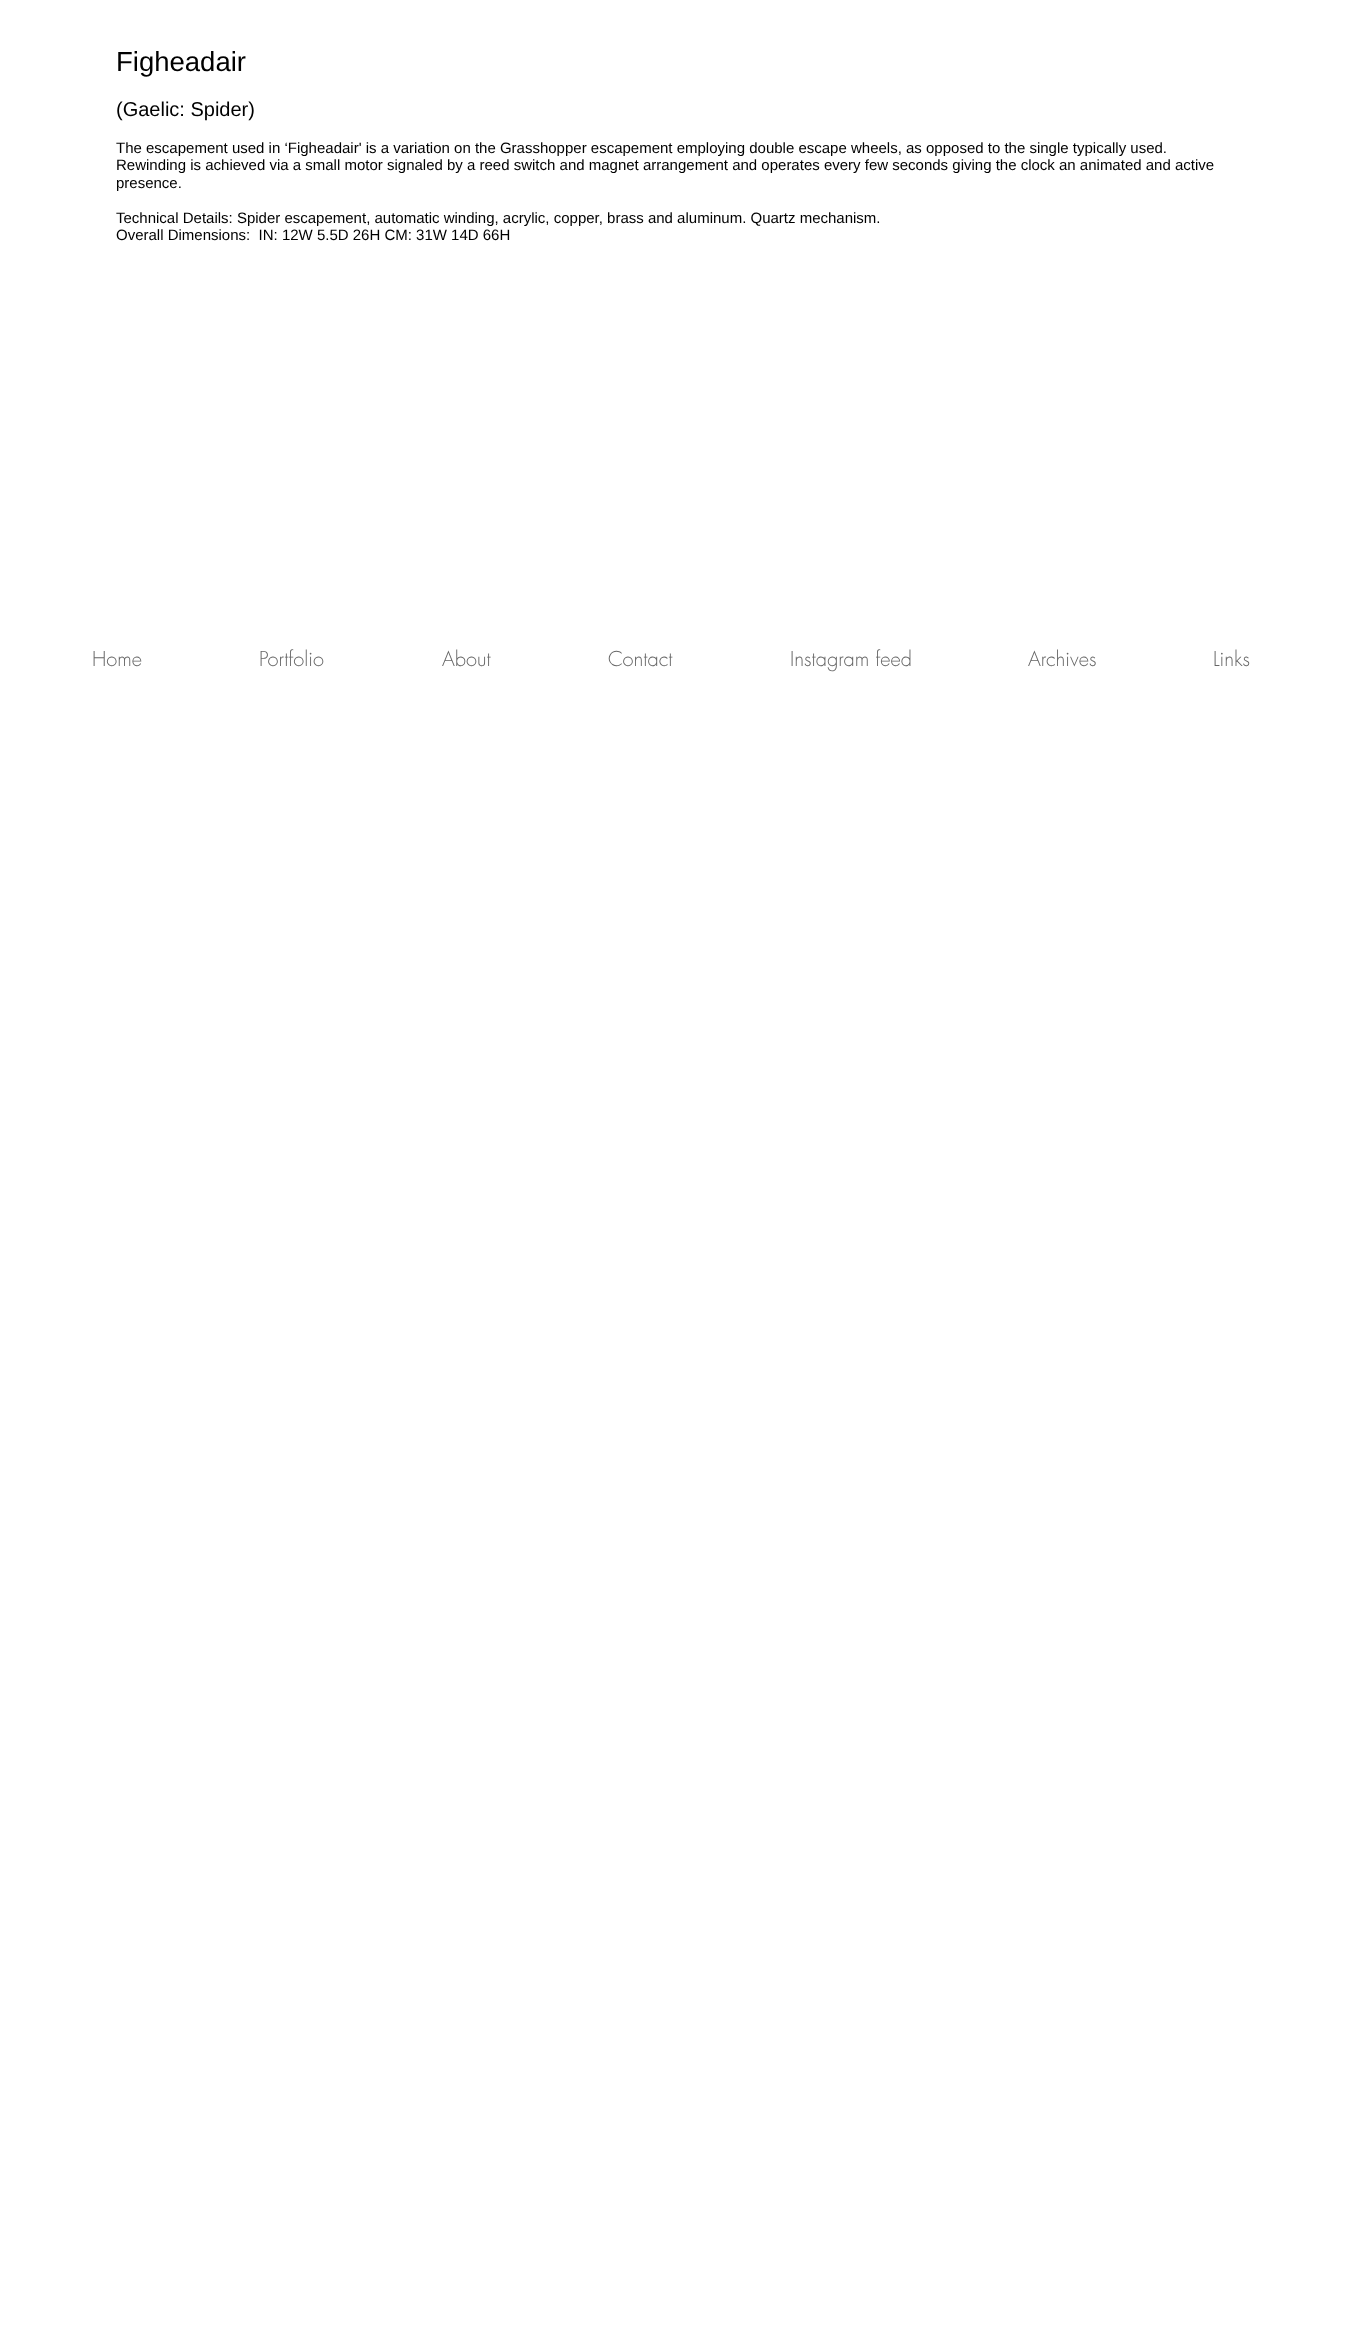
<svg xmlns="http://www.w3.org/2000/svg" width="1356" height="2326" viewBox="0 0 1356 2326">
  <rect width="100%" height="100%" fill="#ffffff"/>
  <text x="116" y="71" font-family="Liberation Sans" font-size="27.5" fill="#000000">Figheadair</text>
  <text x="116" y="116" font-family="Liberation Sans" font-size="20" fill="#000000">(Gaelic: Spider)</text>
  <text x="116" y="153" font-family="Liberation Sans" font-size="15" fill="#000000">The escapement used in ‘Figheadair' is a variation on the Grasshopper escapement employing double escape wheels, as opposed to the single typically used.</text>
  <text x="116" y="170" font-family="Liberation Sans" font-size="15" fill="#000000">Rewinding is achieved via a small motor signaled by a reed switch and magnet arrangement and operates every few seconds giving the clock an animated and active</text>
  <text x="116" y="188" font-family="Liberation Sans" font-size="15" fill="#000000">presence.</text>
  <text x="116" y="223" font-family="Liberation Sans" font-size="15" fill="#000000">Technical Details: Spider escapement, automatic winding, acrylic, copper, brass and aluminum. Quartz mechanism.</text>
  <text x="116" y="240" font-family="Liberation Sans" font-size="15" fill="#000000" xml:space="preserve">Overall Dimensions:  IN: 12W 5.5D 26H CM: 31W 14D 66H</text>
  <text x="92" y="666" font-family="futura" font-size="20" font-weight="300" fill="#666666">Home</text>
  <text x="259" y="666" font-family="futura" font-size="20" font-weight="300" fill="#666666">Portfolio</text>
  <text x="442" y="666" font-family="futura" font-size="20" font-weight="300" fill="#666666">About</text>
  <text x="608" y="666" font-family="futura" font-size="20" font-weight="300" fill="#666666">Contact</text>
  <text x="790" y="666" font-family="futura" font-size="20" font-weight="300" fill="#666666">Instagram feed</text>
  <text x="1028" y="666" font-family="futura" font-size="20" font-weight="300" fill="#666666">Archives</text>
  <text x="1213" y="666" font-family="futura" font-size="20" font-weight="300" fill="#666666">Links</text>
</svg>
